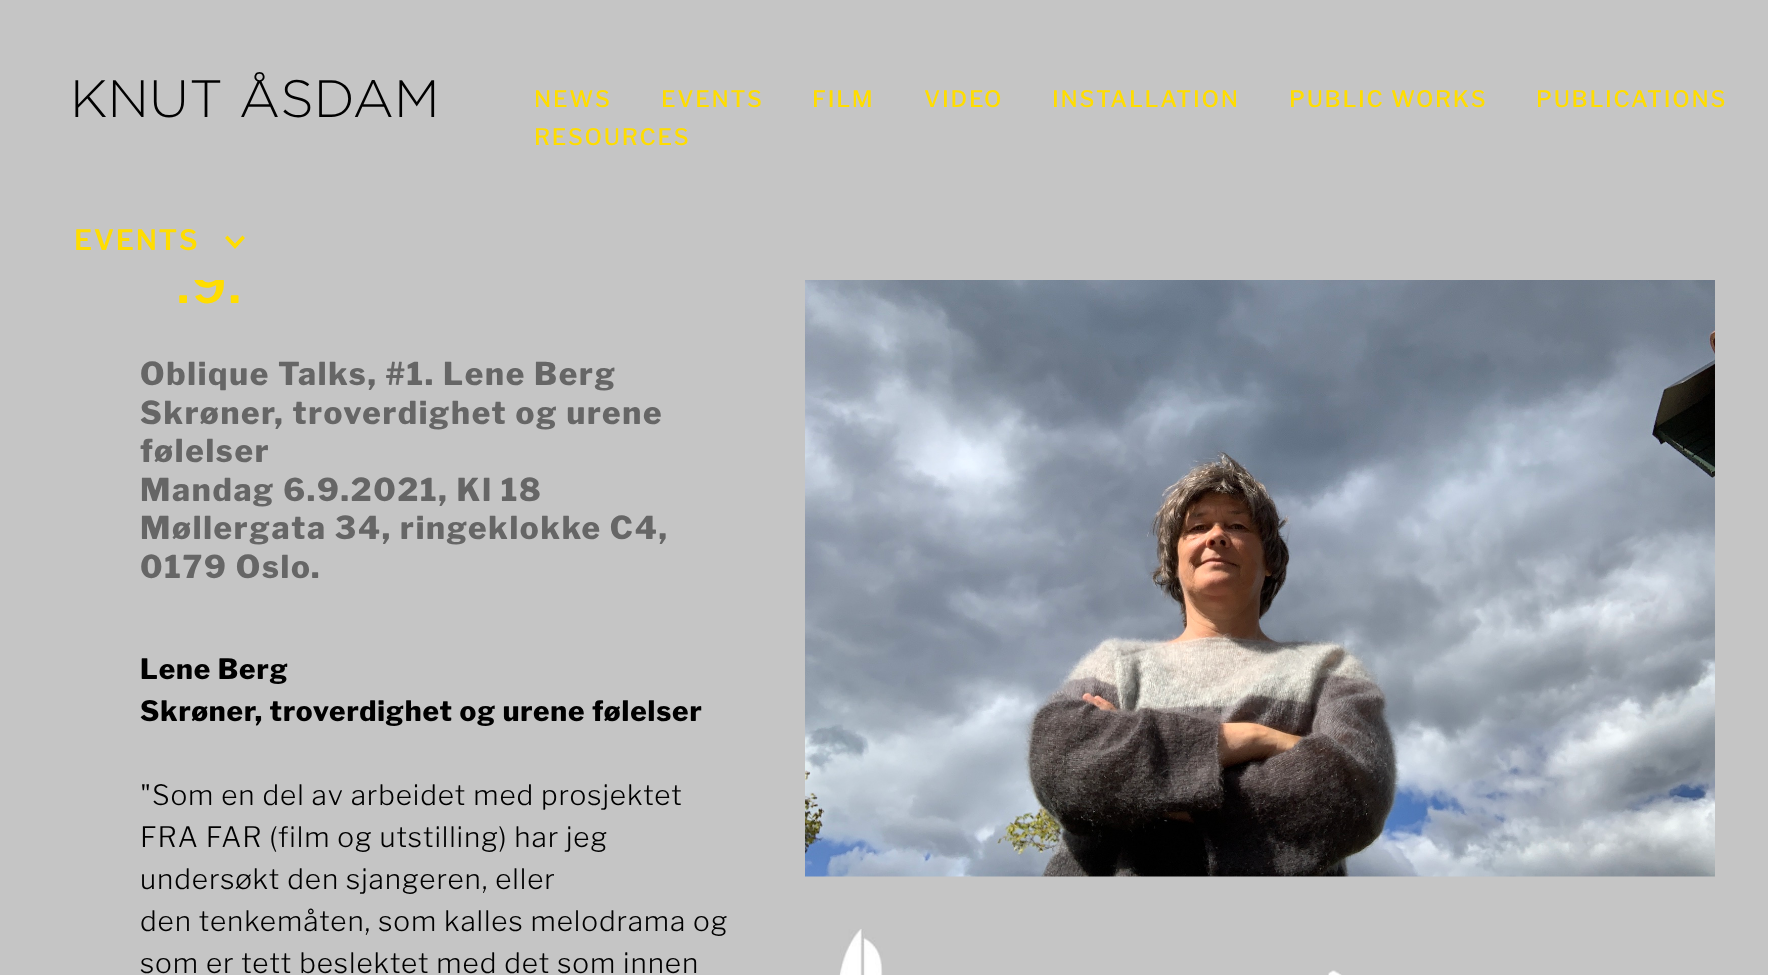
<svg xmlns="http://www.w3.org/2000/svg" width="1768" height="975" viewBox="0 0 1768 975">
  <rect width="100%" height="100%" fill="#c5c5c5"/>
  <text x="177" y="303" font-family="Libre Franklin" font-size="52.5" font-weight="600" letter-spacing="1.75" fill="#ffdd00">.9.</text>
  <rect x="193" y="263" width="32" height="17" fill="#c5c5c5"/>
  <text x="70" y="117" font-family="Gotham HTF" font-size="52.5" font-weight="300" fill="#000000">KNUT ÅSDAM</text>
  <text x="534" y="107" font-family="Libre Franklin" font-size="22.75" font-weight="500" letter-spacing="1.75" fill="#ffdd00">NEWS</text>
  <text x="661" y="107" font-family="Libre Franklin" font-size="22.75" font-weight="500" letter-spacing="1.75" fill="#ffdd00">EVENTS</text>
  <text x="812" y="107" font-family="Libre Franklin" font-size="22.75" font-weight="500" letter-spacing="1.75" fill="#ffdd00">FILM</text>
  <text x="924" y="107" font-family="Libre Franklin" font-size="22.75" font-weight="500" letter-spacing="1.75" fill="#ffdd00">VIDEO</text>
  <text x="1052" y="107" font-family="Libre Franklin" font-size="22.75" font-weight="500" letter-spacing="1.75" fill="#ffdd00">INSTALLATION</text>
  <text x="1289" y="107" font-family="Libre Franklin" font-size="22.75" font-weight="500" letter-spacing="1.75" fill="#ffdd00">PUBLIC WORKS</text>
  <text x="1536" y="107" font-family="Libre Franklin" font-size="22.75" font-weight="500" letter-spacing="1.75" fill="#ffdd00">PUBLICATIONS</text>
  <text x="534" y="145" font-family="Libre Franklin" font-size="22.75" font-weight="500" letter-spacing="1.75" fill="#ffdd00">RESOURCES</text>
  <text x="74" y="250" font-family="Libre Franklin" font-size="28" font-weight="600" letter-spacing="1.75" fill="#ffdd00">EVENTS</text>
  <path d="M242.5 235.5L235 243.5L227.5 235.5L225 238L235 249L245 238Z" fill="#ffdd00"/>
  <text x="140" y="385" font-family="Libre Franklin" font-size="31.5" font-weight="800" letter-spacing="1.75" fill="#666666">Oblique Talks, #1. Lene Berg</text>
  <text x="140" y="424" font-family="Libre Franklin" font-size="31.5" font-weight="800" letter-spacing="1.75" fill="#666666">Skrøner, troverdighet og urene</text>
  <text x="140" y="462" font-family="Libre Franklin" font-size="31.5" font-weight="800" letter-spacing="1.75" fill="#666666">følelser</text>
  <text x="140" y="501" font-family="Libre Franklin" font-size="31.5" font-weight="800" letter-spacing="1.75" fill="#666666">Mandag 6.9.2021, Kl 18</text>
  <text x="140" y="539" font-family="Libre Franklin" font-size="31.5" font-weight="800" letter-spacing="1.75" fill="#666666">Møllergata 34, ringeklokke C4,</text>
  <text x="140" y="578" font-family="Libre Franklin" font-size="31.5" font-weight="800" letter-spacing="1.75" fill="#666666">0179 Oslo.</text>
  <text x="140" y="679" font-family="Libre Franklin" font-size="28" font-weight="800" letter-spacing="0.9" fill="#000000">Lene Berg</text>
  <text x="140" y="721" font-family="Libre Franklin" font-size="28" font-weight="800" letter-spacing="0.9" fill="#000000">Skrøner, troverdighet og urene følelser</text>
  <text x="140" y="805" font-family="Libre Franklin" font-size="28" font-weight="300" letter-spacing="0.9" fill="#000000">"Som en del av arbeidet med prosjektet</text>
  <text x="140" y="847" font-family="Libre Franklin" font-size="28" font-weight="300" letter-spacing="0.9" fill="#000000">FRA FAR (film og utstilling) har jeg</text>
  <text x="140" y="889" font-family="Libre Franklin" font-size="28" font-weight="300" letter-spacing="0.9" fill="#000000">undersøkt den sjangeren, eller</text>
  <text x="140" y="931" font-family="Libre Franklin" font-size="28" font-weight="300" letter-spacing="0.9" fill="#000000">den tenkemåten, som kalles melodrama og</text>
  <text x="140" y="973" font-family="Libre Franklin" font-size="28" font-weight="300" letter-spacing="0.9" fill="#000000">som er tett beslektet med det som innen</text>
  <image x="805" y="280" width="910" height="597" href="img1.png"/>
  <image x="839" y="929" width="44" height="46" href="img2.png"/>
  <image x="1328" y="970" width="14" height="5" href="img3.png"/>
</svg>
